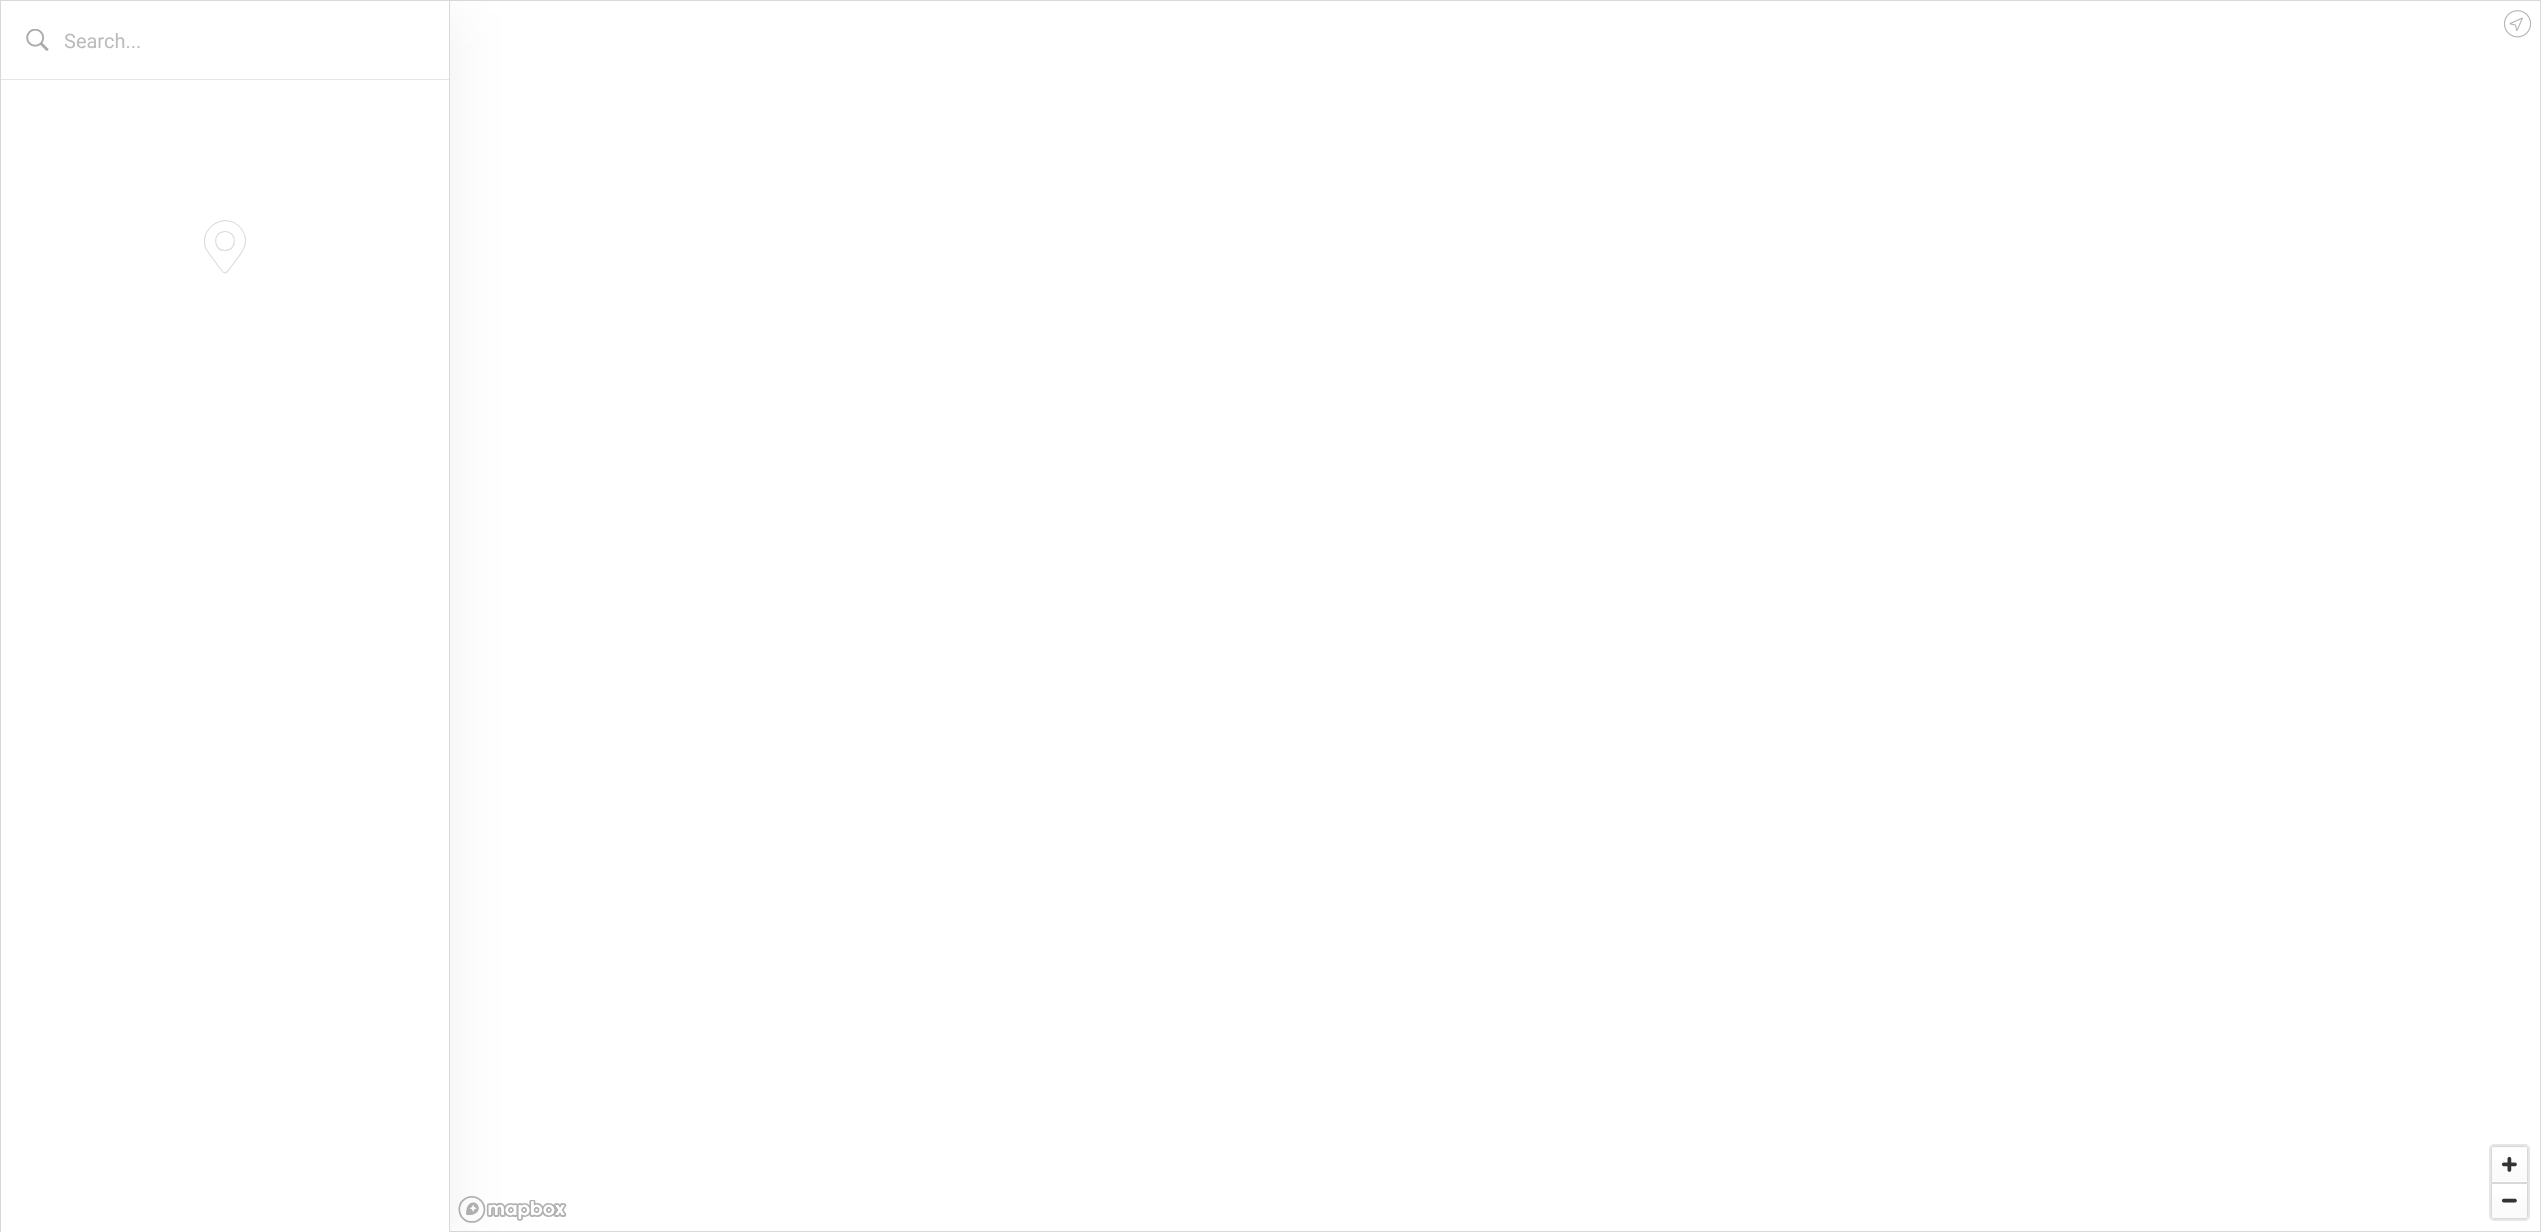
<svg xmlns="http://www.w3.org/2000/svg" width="2541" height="1232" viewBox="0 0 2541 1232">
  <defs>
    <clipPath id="clip1"><path d="M2493.5 1146H2525.5C2527 1146 2528 1147 2528 1148.5V1183H2491V1148.5C2491 1147 2492 1146 2493.5 1146Z"/></clipPath>
    <linearGradient id="g1" gradientUnits="userSpaceOnUse" x1="2509" y1="1114" x2="2509" y2="1148"><stop offset="0" stop-color="#fefefe"/><stop offset="1" stop-color="#fafafa"/></linearGradient>
    <linearGradient id="g2" gradientUnits="userSpaceOnUse" x1="2509" y1="1148" x2="2509" y2="1181"><stop offset="0" stop-color="#fefefe"/><stop offset="1" stop-color="#fafafa"/></linearGradient>
    <linearGradient id="g3" gradientUnits="userSpaceOnUse" x1="2509" y1="1184" x2="2509" y2="1218"><stop offset="0" stop-color="#fefefe"/><stop offset="1" stop-color="#fafafa"/></linearGradient>
    <filter id="blur1" x="-50%" y="-200%" width="200%" height="500%"><feGaussianBlur stdDeviation="26"/></filter>
    <clipPath id="clip2"><rect x="204" y="220" width="42" height="54"/></clipPath>
  </defs>
  <rect width="100%" height="100%" fill="#ffffff"/>
  <path d="M450 0H2541L2540 1H450Z" fill="#d9d9d9"/>
  <path d="M2541 0V1232L2540 1231V1Z" fill="#000000" fill-opacity="0.15"/>
  <path d="M2541 1232H450V1231H2540Z" fill="#000000" fill-opacity="0.15"/>
  <image x="458" y="1196" width="109" height="27" href="img1.png"/>
  <rect x="2490.5" y="1145.5" width="38" height="74" rx="3.5" fill="none" stroke="#e6e6e6" stroke-width="3"/>
  <rect x="2491" y="1146" width="37" height="73" rx="2.5" fill="#ffffff"/>
  <g clip-path="url(#clip1)">
    <rect x="2491" y="1146" width="37" height="2" fill="url(#g1)"/>
  </g>
  <rect x="2491" y="1160" width="37" height="21" fill="url(#g2)"/>
  <path d="M2493.5 1146.5H2525.5C2526.5 1146.5 2527.5 1147.5 2527.5 1148.5V1182.5H2491.5V1148.5C2491.5 1147.5 2492.5 1146.5 2493.5 1146.5Z" fill="none" stroke="#d8d8d8"/>
  <image x="2501" y="1156" width="16" height="16" href="img2.png"/>
  <rect x="2491" y="1197" width="37" height="21" fill="url(#g3)"/>
  <path d="M2491.5 1183.5H2527.5V1216.5C2527.5 1217.5 2526.5 1218.5 2525.5 1218.5H2493.5C2492.5 1218.5 2491.5 1217.5 2491.5 1216.5Z" fill="none" stroke="#d8d8d8"/>
  <image x="2501" y="1198" width="16" height="5" href="img3.png"/>
  <image x="2504" y="10" width="27" height="28" href="img4.png"/>
  <rect x="8" y="13" width="450" height="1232" fill="#000000" fill-opacity="0.05" filter="url(#blur1)"/>
  <rect x="0.5" y="0.5" width="449" height="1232" fill="#ffffff" stroke="#d9d9d9"/>
  <rect x="1" y="79" width="448" height="1" fill="#e5e5e5"/>
  <image x="26" y="29" width="23" height="22" href="img5.png"/>
  <text x="64" y="48" font-family="Roboto" font-size="20" fill="#bbbbbb">Search...</text>
  <g clip-path="url(#clip2)">
    <path d="M209 253.5C192.5 232 225 207.5 241.5 229C252 243 240 255 232 265.5C226.5 272.5 226 276.5 220.5 269ZM225 231.5C212.5 231.5 212.5 250.5 225 250.5C237.5 250.5 237.5 231.5 225 231.5Z" fill="none" stroke="#dddddd" stroke-width="1.2"/>
  </g>
</svg>
